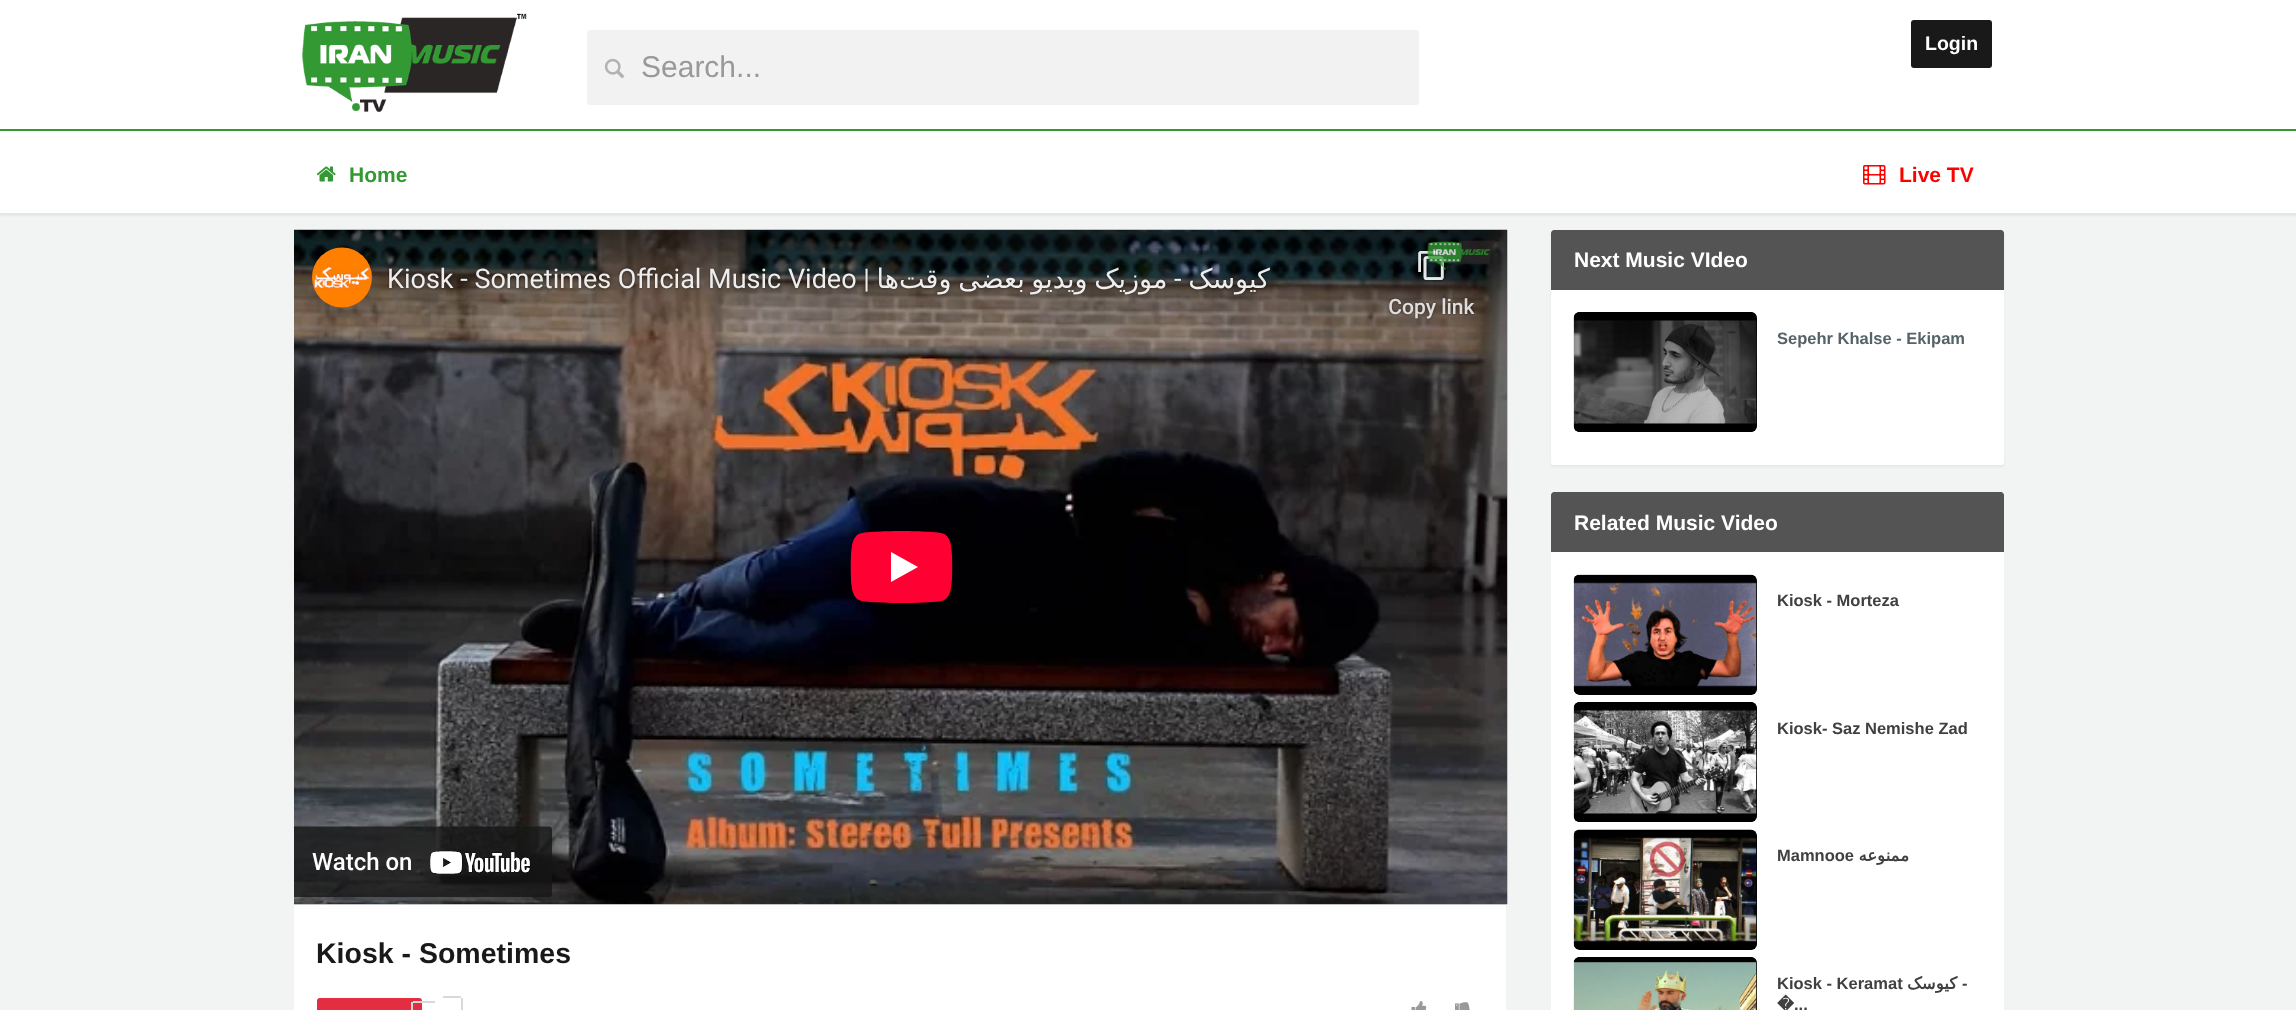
<svg xmlns="http://www.w3.org/2000/svg" width="2296" height="1010" viewBox="0 0 2296 1010">
  <defs>
    <filter id="blur1" x="-50%" y="-200%" width="200%" height="500%"><feGaussianBlur stdDeviation="1"/></filter>
  </defs>
  <rect width="100%" height="100%" fill="#f2f4f3"/>
  <rect x="0" y="0" width="2296" height="129" fill="#ffffff"/>
  <rect x="0" y="129" width="2296" height="2" fill="#339933"/>
  <image x="302" y="13" width="225" height="99" href="img1.png"/>
  <rect x="1912" y="21" width="79" height="46" rx="2" fill="#191919" stroke="#191919" stroke-width="2"/>
  <text x="1925" y="50" font-family="Liberation Sans" font-size="19.5" font-weight="bold" fill="#ffffff">Login</text>
  <path d="M590 30H642V105H590C588.5 105 587 103.5 587 102V33C587 31.5 588.5 30 590 30Z" fill="#f2f2f2"/>
  <image x="604" y="58" width="21" height="21" href="img2.png"/>
  <path d="M642 30H1416C1417.5 30 1419 31.5 1419 33V102C1419 103.5 1417.5 105 1416 105H642Z" fill="#f2f2f2"/>
  <text x="641" y="77" font-family="Liberation Sans" font-size="30" fill="#999999">Search...</text>
  <rect x="0" y="132" width="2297" height="84" fill="#000000" fill-opacity="0.05" filter="url(#blur1)"/>
  <rect x="0" y="131" width="2296" height="82" fill="#ffffff"/>
  <rect x="0" y="213" width="2296" height="2" fill="#e6e6e6"/>
  <image x="316" y="166" width="20" height="16" href="img3.png"/>
  <text x="349" y="182" font-family="Liberation Sans" font-size="21" font-weight="bold" fill="#339933">Home</text>
  <image x="1863" y="165" width="23" height="20" href="img4.png"/>
  <text x="1899" y="182" font-family="Liberation Sans" font-size="21" font-weight="bold" fill="#ff0000">Live TV</text>
  <image x="294" y="229" width="1214" height="676" href="img5.png"/>
  <rect x="294" y="905" width="1212" height="105" fill="#ffffff"/>
  <text x="316" y="963" font-family="Liberation Sans" font-size="28.5" font-weight="bold" fill="#191919">Kiosk - Sometimes</text>
  <rect x="318" y="999" width="103" height="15" rx="2" fill="#e22e40" stroke="#e22e40" stroke-width="2"/>
  <rect x="413" y="1001" width="22" height="2" fill="#d9d9d9"/>
  <rect x="411" y="1002" width="2" height="8" fill="#d9d9d9"/>
  <rect x="443" y="996" width="18" height="2" fill="#d9d9d9"/>
  <rect x="461" y="998" width="2" height="12" fill="#d9d9d9"/>
  <path d="M435 1009.5V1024.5L427.5 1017Z" fill="#d9d9d9"/>
  <image x="1411" y="1001" width="16" height="9" href="img6.png"/>
  <image x="1455" y="1002" width="15" height="8" href="img7.png"/>
  <rect x="1551" y="231" width="453" height="236" rx="3" fill="#000000" fill-opacity="0.05" filter="url(#blur1)"/>
  <rect x="1551" y="230" width="453" height="235" rx="3" fill="#ffffff"/>
  <path d="M1554 230H2001C2002.5 230 2004 231.5 2004 233V290H1551V233C1551 231.5 1552.5 230 1554 230Z" fill="#545454"/>
  <text x="1574" y="267" font-family="Liberation Sans" font-size="21" font-weight="bold" fill="#ffffff">Next Music VIdeo</text>
  <rect x="1574" y="312" width="183" height="120" rx="6" fill="#000000"/>
  <image x="1573" y="312" width="184" height="120" href="img8.png"/>
  <text x="1777" y="344" font-family="Liberation Sans" font-size="16.5" font-weight="bold" fill="#556268">Sepehr Khalse - Ekipam</text>
  <rect x="1551" y="492" width="453" height="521" rx="3" fill="#ffffff"/>
  <path d="M1554 492H2001C2002.5 492 2004 493.5 2004 495V552H1551V495C1551 493.5 1552.5 492 1554 492Z" fill="#545454"/>
  <text x="1574" y="530" font-family="Liberation Sans" font-size="21" font-weight="bold" fill="#ffffff">Related Music Video</text>
  <rect x="1574" y="575" width="183" height="120" rx="6" fill="#000000"/>
  <image x="1573" y="574" width="184" height="121" href="img9.png"/>
  <text x="1777" y="606" font-family="Liberation Sans" font-size="16.5" font-weight="bold" fill="#404040">Kiosk - Morteza</text>
  <rect x="1574" y="702" width="183" height="120" rx="6" fill="#000000"/>
  <image x="1573" y="702" width="184" height="120" href="img10.png"/>
  <text x="1777" y="734" font-family="Liberation Sans" font-size="16.5" font-weight="bold" fill="#404040">Kiosk- Saz Nemishe Zad</text>
  <rect x="1574" y="830" width="183" height="120" rx="6" fill="#000000"/>
  <image x="1573" y="829" width="184" height="121" href="img11.png"/>
  <text x="1777" y="861" font-family="Liberation Sans" font-size="16.5" font-weight="bold" fill="#404040">Mamnooe</text>
  <text x="1909" y="861" font-family="DejaVu Sans" font-size="16.5" font-weight="bold" direction="rtl" fill="#404040">ممنوعه</text>
  <rect x="1574" y="957" width="183" height="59" rx="6" fill="#000000"/>
  <image x="1573" y="957" width="184" height="53" href="img12.png"/>
  <text x="1777" y="989" font-family="Liberation Sans" font-size="16.5" font-weight="bold" fill="#404040">Kiosk - Keramat</text>
  <text x="1957" y="989" font-family="DejaVu Sans" font-size="16.5" font-weight="bold" direction="rtl" fill="#404040">کیوسک</text>
  <text x="1962" y="989" font-family="Liberation Sans" font-size="16.5" font-weight="bold" fill="#404040">-</text>
  <text x="1777" y="1010" font-family="DejaVu Sans" font-size="16.5" font-weight="bold" fill="#404040">�</text>
  <text x="1794" y="1010" font-family="Liberation Sans" font-size="16.5" font-weight="bold" fill="#404040">...</text>
</svg>
